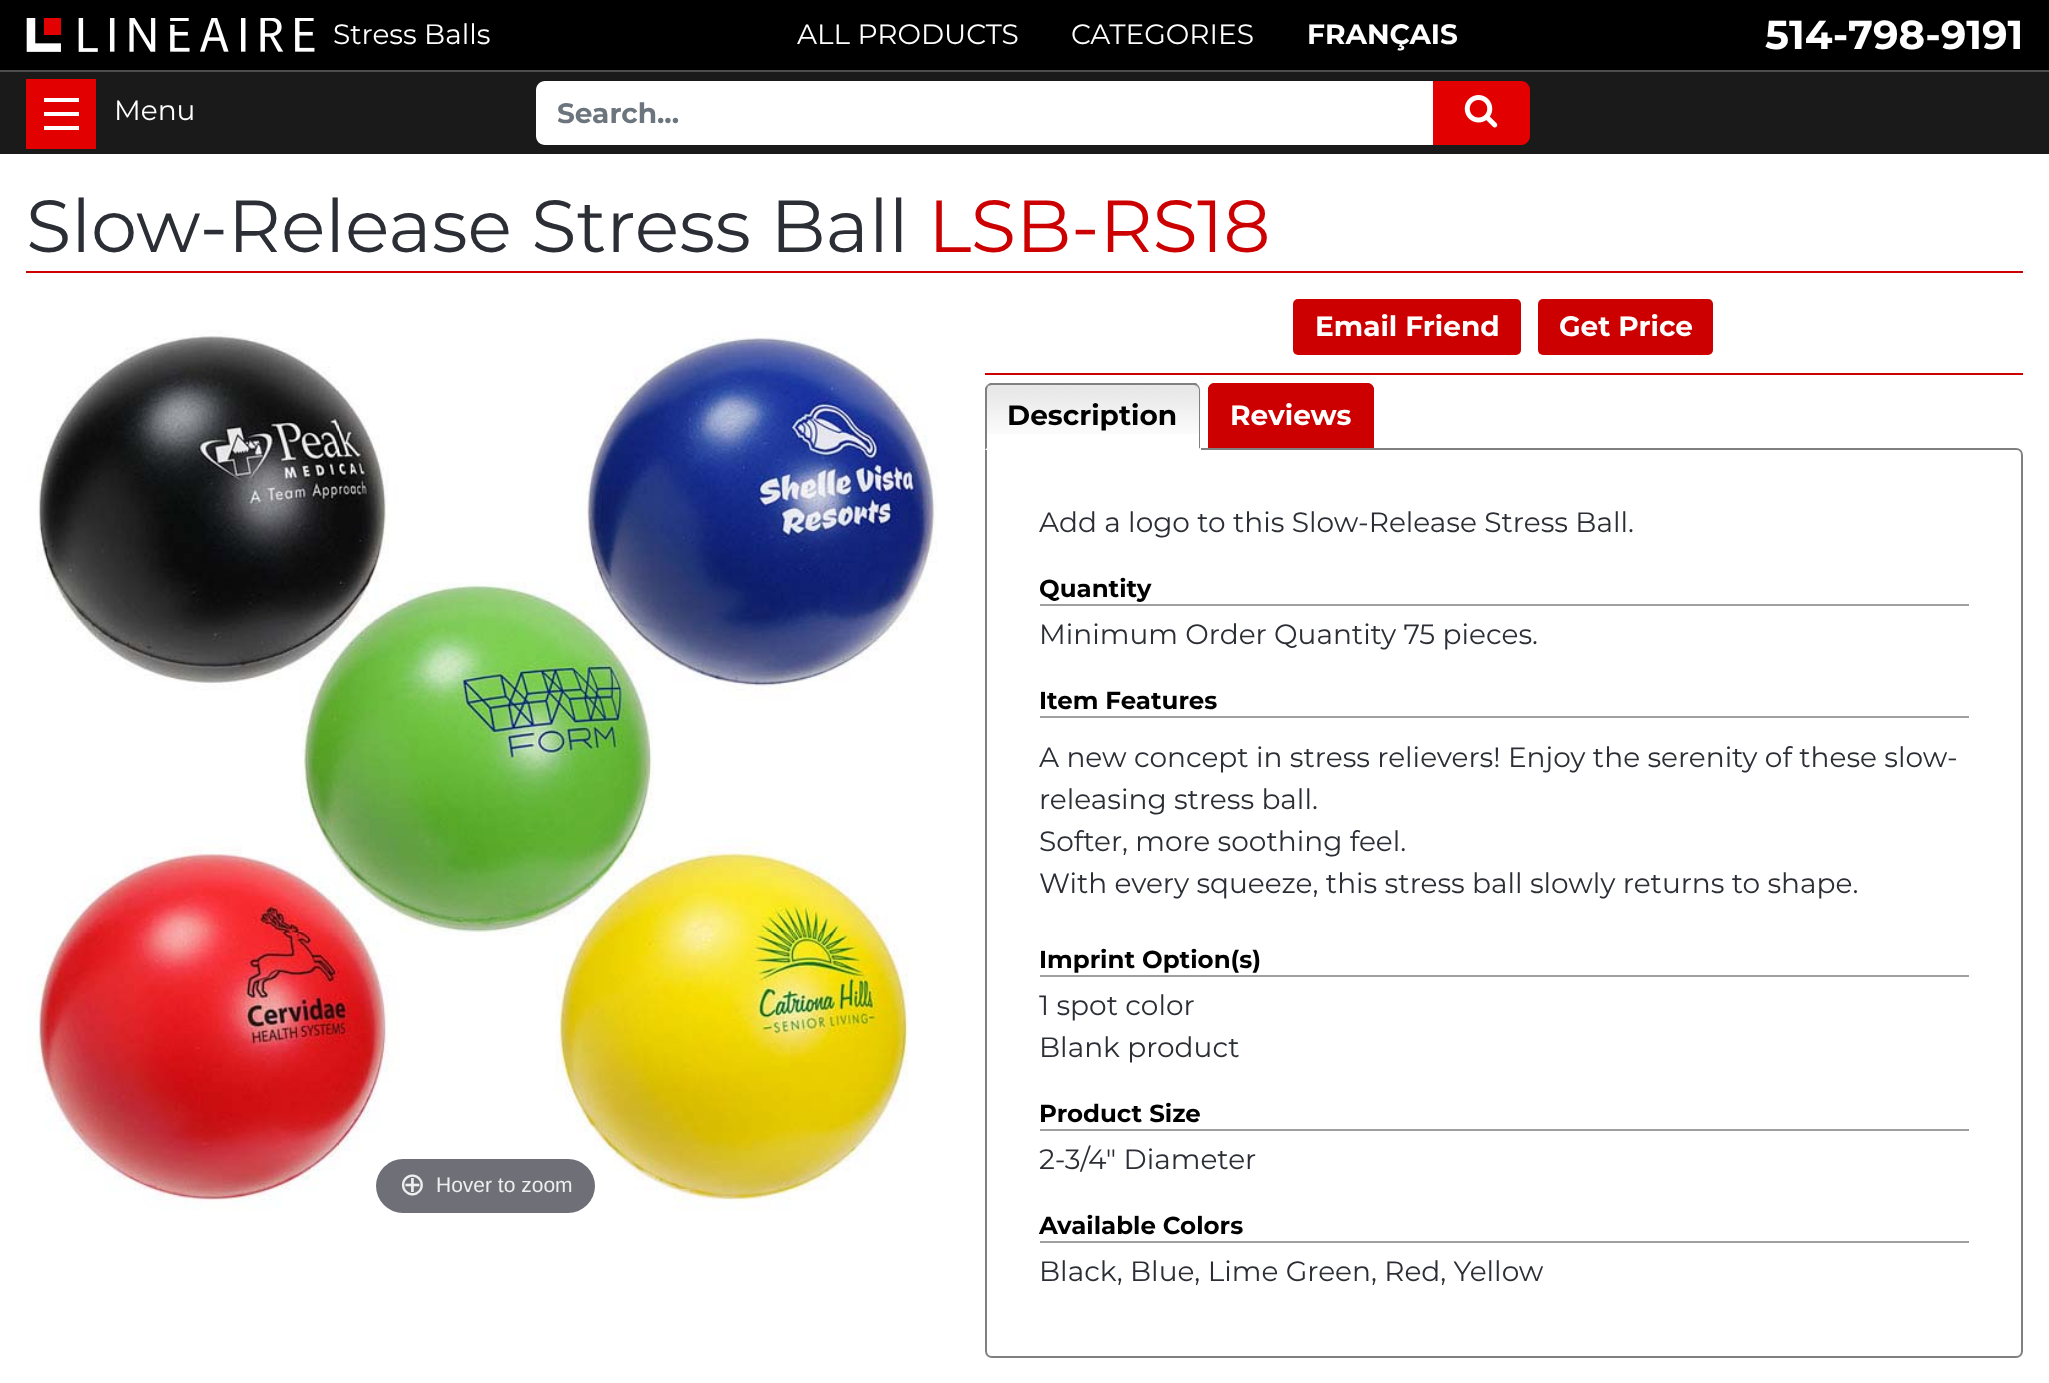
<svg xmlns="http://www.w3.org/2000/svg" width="2049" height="1383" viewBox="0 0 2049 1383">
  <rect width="100%" height="100%" fill="#ffffff"/>
  <rect x="0" y="72" width="2049" height="82" fill="#1a1a1a"/>
  <rect x="0" y="0" width="2049" height="70" fill="#000000"/>
  <rect x="0" y="70" width="2049" height="2" fill="#4d4d4d"/>
  <image x="26" y="18" width="289" height="34" href="img1.png"/>
  <text x="333" y="44" font-family="Montserrat" font-size="28" fill="#ffffff">Stress Balls</text>
  <text x="797" y="44" font-family="Montserrat" font-size="28" fill="#ffffff">ALL PRODUCTS</text>
  <text x="1071" y="44" font-family="Montserrat" font-size="28" fill="#ffffff">CATEGORIES</text>
  <text x="1307" y="44" font-family="Montserrat" font-size="28" font-weight="bold" fill="#ffffff">FRANÇAIS</text>
  <text x="1765" y="49" font-family="Montserrat" font-size="40.25" font-weight="bold" fill="#ffffff">514-798-9191</text>
  <rect x="26" y="79" width="70" height="70" fill="#e20000"/>
  <rect x="44" y="112" width="35" height="4" fill="#ffffff"/>
  <rect x="44" y="98" width="35" height="4" fill="#ffffff"/>
  <rect x="44" y="126" width="35" height="4" fill="#ffffff"/>
  <text x="114" y="120" font-family="Montserrat" font-size="28" fill="#ffffff">Menu</text>
  <path d="M545 81H1435V145H545C540 145 536 141 536 136V90C536 85 540 81 545 81Z" fill="#ffffff"/>
  <text x="557" y="123" font-family="Montserrat" font-size="28" font-weight="bold" fill="#6c757d">Search...</text>
  <path d="M1433 81H1521C1526 81 1530 85 1530 90V136C1530 141 1526 145 1521 145H1433Z" fill="#e20000"/>
  <image x="1464" y="95" width="34" height="33" href="img2.png"/>
  <rect x="26" y="271" width="1997" height="2" fill="#cc0000"/>
  <text x="26" y="252" font-family="Montserrat" font-size="73.5" fill="#2c2e35">Slow-Release Stress Ball</text>
  <text x="928" y="252" font-family="Montserrat" font-size="73.5" fill="#cc0000">LSB-RS18</text>
  <rect x="1293" y="299" width="228" height="56" rx="5" fill="#cc0000"/>
  <text x="1315" y="336" font-family="Montserrat" font-size="28" font-weight="bold" fill="#ffffff">Email Friend</text>
  <rect x="1538" y="299" width="175" height="56" rx="5" fill="#cc0000"/>
  <text x="1559" y="336" font-family="Montserrat" font-size="28" font-weight="bold" fill="#ffffff">Get Price</text>
  <image x="27" y="330" width="911" height="880" href="img3.png"/>
  <rect x="376" y="1159" width="219" height="54" rx="27" fill="#6f7077"/>
  <text x="399" y="1195" font-family="DejaVu Sans" font-size="32" fill="#eeeeee">⊕</text>
  <text x="436" y="1192" font-family="Liberation Sans" font-size="21" fill="#eeeeee">Hover to zoom</text>
  <rect x="985" y="373" width="1038" height="2" fill="#cc0000"/>
  <path d="M986 449H2016C2019.5 449 2022 451.5 2022 455V1351C2022 1354.5 2019.5 1357 2016 1357H992C988.5 1357 986 1354.5 986 1351Z" fill="none" stroke="#808080" stroke-width="2"/>
  <path d="M992 383H1194C1198 383 1201 386 1201 390V450H985V390C985 386 988 383 992 383Z" fill="#ffffff"/>
  <image x="985" y="385" width="216" height="49" href="img4.png"/>
  <path d="M992 385C990 385 989 386 988 386L987 385L990 383H1196L1198 385L1197 386L1194 385Z" fill="#808080"/>
  <path d="M1198 385C1199 387 1200 388 1200 390V449L1199 448V389L1197 386Z" fill="#808080"/>
  <path d="M1200 449V450H985L987 448H1199Z" fill="#ffffff"/>
  <path d="M985 450V388L987 385L988 386C988 387 987 388 987 390V448Z" fill="#808080"/>
  <text x="1007" y="425" font-family="Montserrat" font-size="28" font-weight="bold" fill="#000000">Description</text>
  <path d="M1215 383H1367C1371 383 1374 386 1374 390V448H1208V390C1208 386 1211 383 1215 383Z" fill="#cc0000"/>
  <path d="M1214 383H1367C1371 383 1374 386 1374 390V448H1208V390C1208 386 1211 383 1214 383ZM1214 385H1367C1370 385 1372 387 1372 390V448H1209V390C1209 387 1212 385 1214 385Z" fill="#cc0000" fill-rule="evenodd"/>
  <text x="1230" y="425" font-family="Montserrat" font-size="28" font-weight="bold" fill="#ffffff">Reviews</text>
  <text x="1039" y="532" font-family="Montserrat" font-size="28" fill="#2c2e35">Add a logo to this Slow-Release Stress Ball.</text>
  <rect x="1040" y="604" width="929" height="2" fill="#9f9f9f"/>
  <text x="1039" y="597" font-family="Montserrat" font-size="24.5" font-weight="bold" fill="#000000">Quantity</text>
  <text x="1039" y="644" font-family="Montserrat" font-size="28" fill="#2c2e35">Minimum Order Quantity 75 pieces.</text>
  <rect x="1040" y="716" width="929" height="2" fill="#9f9f9f"/>
  <text x="1039" y="709" font-family="Montserrat" font-size="24.5" font-weight="bold" fill="#000000">Item Features</text>
  <text x="1039" y="767" font-family="Montserrat" font-size="28" fill="#2c2e35">A new concept in stress relievers! Enjoy the serenity of these slow-</text>
  <text x="1039" y="809" font-family="Montserrat" font-size="28" fill="#2c2e35">releasing stress ball.</text>
  <text x="1039" y="851" font-family="Montserrat" font-size="28" fill="#2c2e35">Softer, more soothing feel.</text>
  <text x="1039" y="893" font-family="Montserrat" font-size="28" fill="#2c2e35">With every squeeze, this stress ball slowly returns to shape.</text>
  <rect x="1040" y="975" width="929" height="2" fill="#9f9f9f"/>
  <text x="1039" y="968" font-family="Montserrat" font-size="24.5" font-weight="bold" fill="#000000">Imprint Option(s)</text>
  <text x="1039" y="1015" font-family="Montserrat" font-size="28" fill="#2c2e35">1 spot color</text>
  <text x="1039" y="1057" font-family="Montserrat" font-size="28" fill="#2c2e35">Blank product</text>
  <rect x="1040" y="1129" width="929" height="2" fill="#9f9f9f"/>
  <text x="1039" y="1122" font-family="Montserrat" font-size="24.5" font-weight="bold" fill="#000000">Product Size</text>
  <text x="1039" y="1169" font-family="Montserrat" font-size="28" fill="#2c2e35">2-3/4" Diameter</text>
  <rect x="1040" y="1241" width="929" height="2" fill="#9f9f9f"/>
  <text x="1039" y="1234" font-family="Montserrat" font-size="24.5" font-weight="bold" fill="#000000">Available Colors</text>
  <text x="1039" y="1281" font-family="Montserrat" font-size="28" fill="#2c2e35">Black, Blue, Lime Green, Red, Yellow</text>
</svg>
